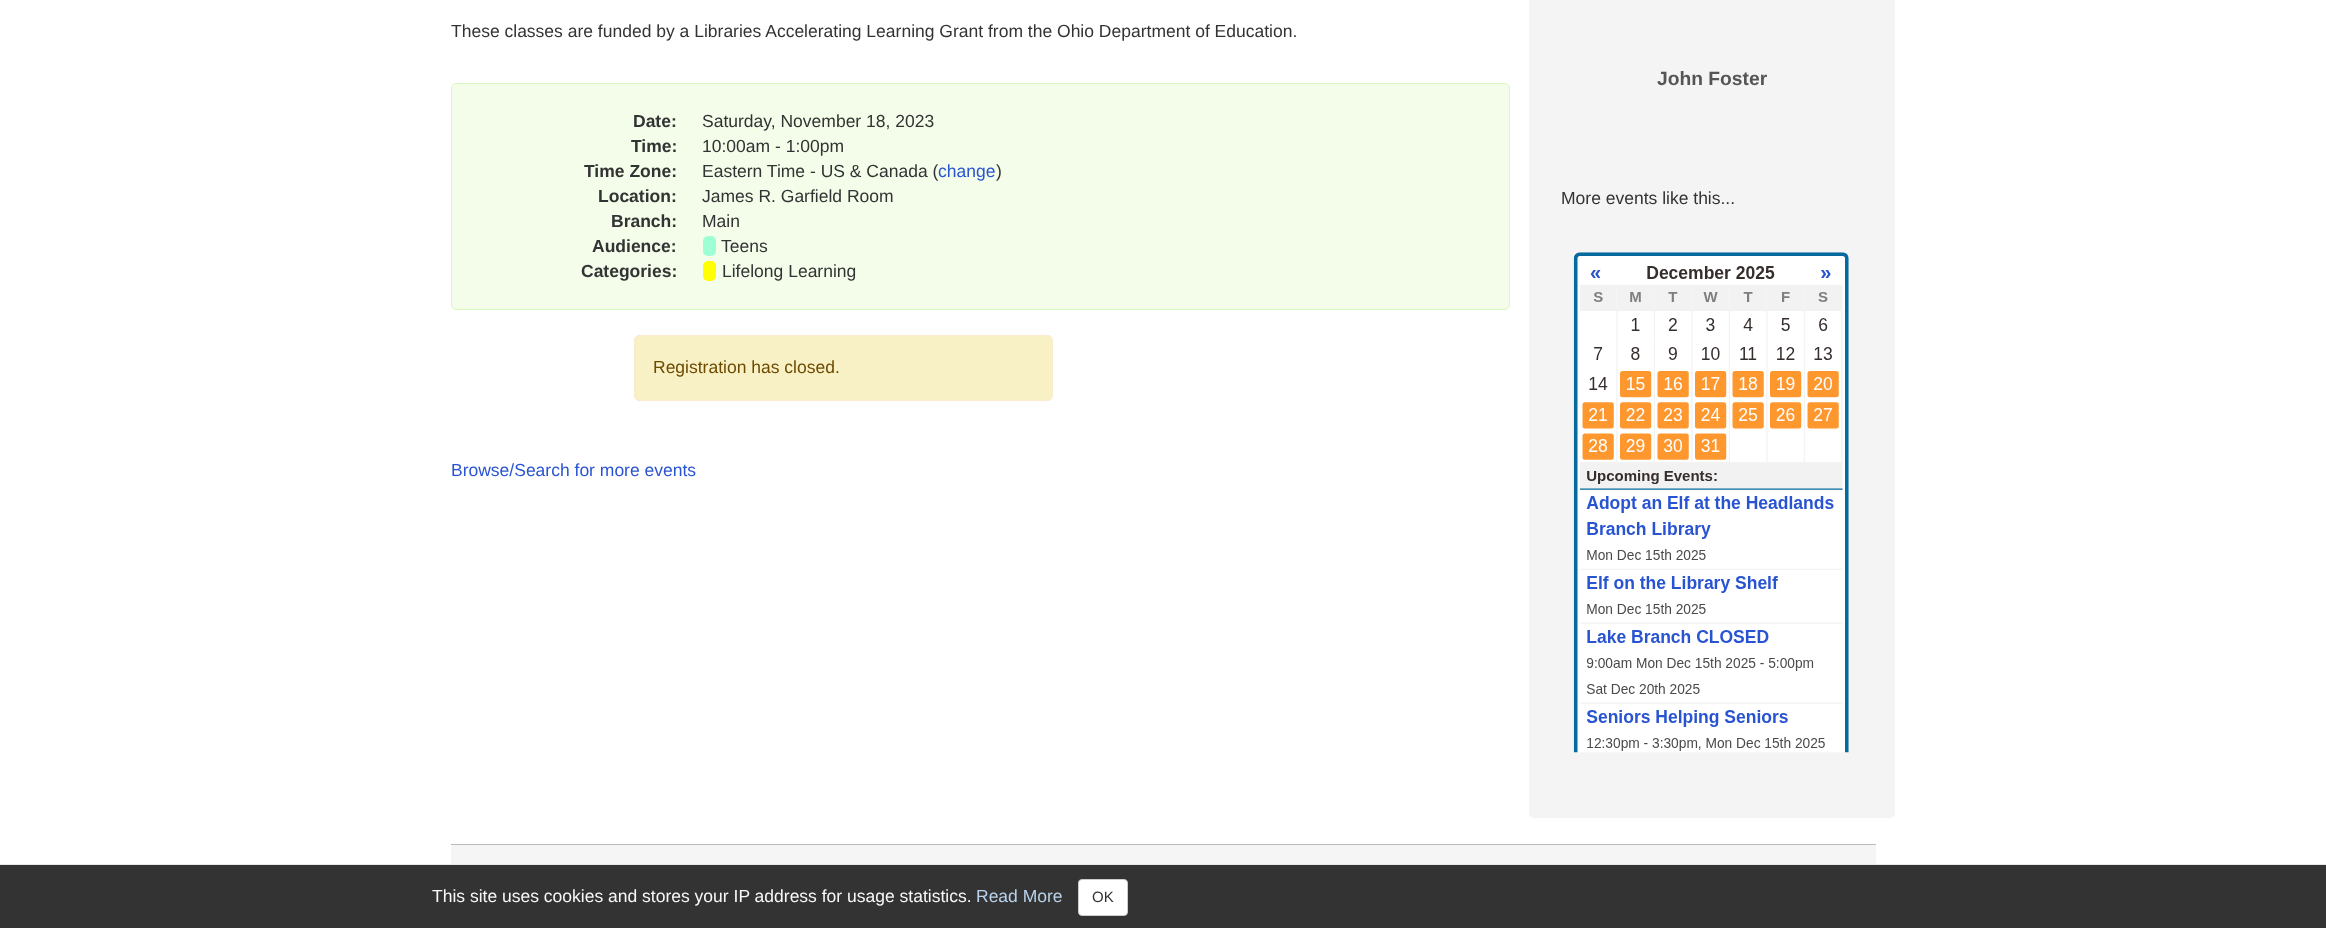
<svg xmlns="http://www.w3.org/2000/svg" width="2326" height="928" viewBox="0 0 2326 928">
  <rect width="100%" height="100%" fill="#ffffff"/>
  <text x="451" y="37" font-family="Liberation Sans" font-size="17.5" fill="#333333">These classes are funded by a Libraries Accelerating Learning Grant from the Ohio Department of Education.</text>
  <rect x="451.5" y="83.5" width="1058" height="226" rx="4.5" fill="#f3fdea" stroke="#daf9c2"/>
  <text x="633" y="127" font-family="Liberation Sans" font-size="17.5" font-weight="bold" fill="#333333">Date:</text>
  <text x="702" y="127" font-family="Liberation Sans" font-size="17.5" fill="#333333">Saturday, November 18, 2023</text>
  <text x="631" y="152" font-family="Liberation Sans" font-size="17.5" font-weight="bold" fill="#333333">Time:</text>
  <text x="702" y="152" font-family="Liberation Sans" font-size="17.5" fill="#333333">10:00am - 1:00pm</text>
  <text x="584" y="177" font-family="Liberation Sans" font-size="17.5" font-weight="bold" fill="#333333">Time Zone:</text>
  <text x="702" y="177" font-family="Liberation Sans" font-size="17.5" fill="#333333">Eastern Time - US &amp; Canada (</text>
  <text x="938" y="177" font-family="Liberation Sans" font-size="17.5" fill="#2954d1">change</text>
  <text x="996" y="177" font-family="Liberation Sans" font-size="17.5" fill="#333333">)</text>
  <text x="598" y="202" font-family="Liberation Sans" font-size="17.5" font-weight="bold" fill="#333333">Location:</text>
  <text x="702" y="202" font-family="Liberation Sans" font-size="17.5" fill="#333333">James R. Garfield Room</text>
  <text x="611" y="227" font-family="Liberation Sans" font-size="17.5" font-weight="bold" fill="#333333">Branch:</text>
  <text x="702" y="227" font-family="Liberation Sans" font-size="17.5" fill="#333333">Main</text>
  <text x="592" y="252" font-family="Liberation Sans" font-size="17.5" font-weight="bold" fill="#333333">Audience:</text>
  <rect x="703" y="236" width="13" height="20" rx="5" fill="#9effd5"/>
  <text x="721" y="252" font-family="Liberation Sans" font-size="17.5" fill="#333333">Teens</text>
  <text x="581" y="277" font-family="Liberation Sans" font-size="17.5" font-weight="bold" fill="#333333">Categories:</text>
  <rect x="703" y="261" width="13" height="20" rx="5" fill="#ffff00"/>
  <text x="722" y="277" font-family="Liberation Sans" font-size="17.5" fill="#333333">Lifelong Learning</text>
  <rect x="634.5" y="335.5" width="418" height="65" rx="4.5" fill="#f9f1c6" stroke="#faebcc"/>
  <text x="653" y="373" font-family="Liberation Sans" font-size="17.5" fill="#6c4a00">Registration has closed.</text>
  <text x="451" y="476" font-family="Liberation Sans" font-size="17.5" fill="#2954d1">Browse/Search for more events</text>
  <rect x="1529" y="-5" width="366" height="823" rx="5" fill="#f4f4f4"/>
  <text x="1657" y="85" font-family="Liberation Sans" font-size="19.25" font-weight="bold" fill="#555555">John Foster</text>
  <text x="1561" y="204" font-family="Liberation Sans" font-size="17.5" fill="#333333">More events like this...</text>
  <image x="1573" y="252" width="276" height="501" href="img1.png"/>
  <rect x="451" y="845" width="1425" height="19" fill="#f5f5f5"/>
  <rect x="451" y="844" width="1425" height="1" fill="#bbbbbb"/>
  <rect x="0" y="865" width="2326" height="63" fill="#333333"/>
  <rect x="0" y="864" width="2326" height="1" fill="#e7e7e7"/>
  <text x="432" y="902" font-family="Liberation Sans" font-size="17.5" fill="#f8f8f8">This site uses cookies and stores your IP address for usage statistics.</text>
  <text x="976" y="902" font-family="Liberation Sans" font-size="17.5" fill="#b9d3eb">Read More</text>
  <rect x="1078.5" y="879.5" width="49" height="36" rx="3.5" fill="#ffffff" stroke="#cccccc"/>
  <text x="1092" y="902" font-family="Liberation Sans" font-size="15" fill="#333333">OK</text>
</svg>
